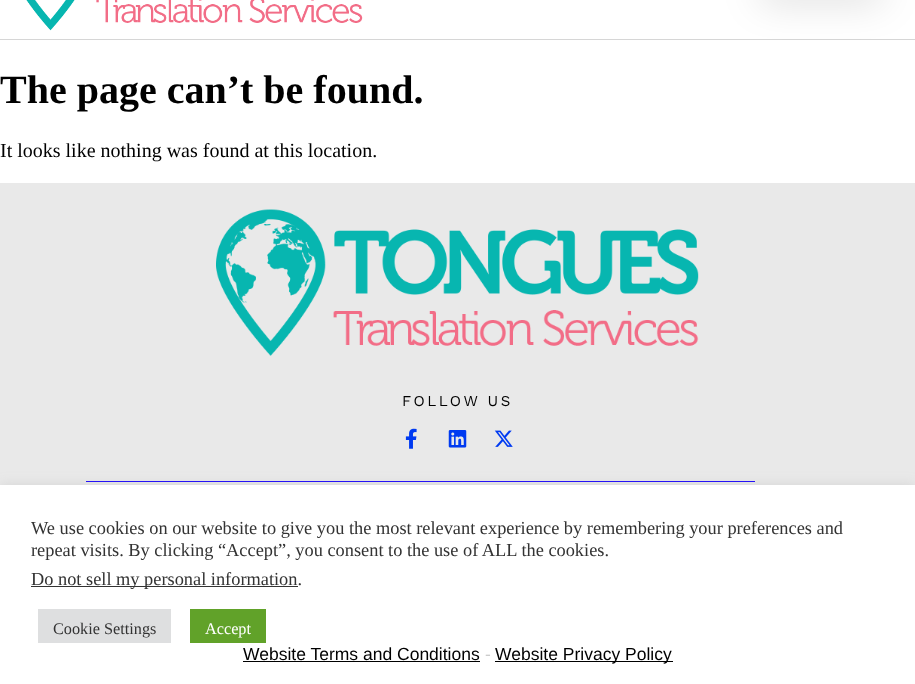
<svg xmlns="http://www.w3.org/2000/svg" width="915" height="684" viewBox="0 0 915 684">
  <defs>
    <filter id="blur1" x="-50%" y="-200%" width="200%" height="500%"><feGaussianBlur stdDeviation="19"/></filter>
    <filter id="blur2" x="-50%" y="-200%" width="200%" height="500%"><feGaussianBlur stdDeviation="6"/></filter>
  </defs>
  <rect width="100%" height="100%" fill="#ffffff"/>
  <rect x="0" y="39" width="915" height="1" fill="#d6d6d6"/>
  <image x="26" y="0" width="337" height="31" href="img1.png"/>
  <rect x="758" y="-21" width="127" height="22" rx="11" fill="#000000" fill-opacity="0.16" filter="url(#blur1)"/>
  <text x="0" y="103" font-family="Liberation Serif" font-size="40" font-weight="bold" fill="#000000">The page can’t be found.</text>
  <text x="0" y="157" font-family="Liberation Serif" font-size="20" fill="#000000">It looks like nothing was found at this location.</text>
  <rect x="0" y="183" width="915" height="302" fill="#e9e9e9"/>
  <image x="216" y="209" width="483" height="147" href="img2.png"/>
  <text x="402" y="406" font-family="Work Sans" font-size="15" letter-spacing="2.5" fill="#000000">FOLLOW US</text>
  <image x="405" y="428" width="12" height="21" href="img3.png"/>
  <image x="448" y="430" width="19" height="18" href="img4.png"/>
  <image x="494" y="430" width="19" height="17" href="img5.png"/>
  <rect x="86" y="481" width="669" height="1" fill="#1500ff"/>
  <rect x="0" y="484" width="915" height="200" fill="#acabab" fill-opacity="0.3" filter="url(#blur2)"/>
  <rect x="0" y="485" width="915" height="199" fill="#ffffff"/>
  <text x="31" y="534" font-family="Liberation Serif" font-size="18.35" fill="#333333">We use cookies on our website to give you the most relevant experience by remembering your preferences and</text>
  <text x="31" y="556" font-family="Liberation Serif" font-size="18.35" fill="#333333">repeat visits. By clicking “Accept”, you consent to the use of ALL the cookies.</text>
  <rect x="31" y="586" width="267" height="1" fill="#333333"/>
  <text x="31" y="585" font-family="Liberation Serif" font-size="18.35" fill="#333333">Do not sell my personal information.</text>
  <rect x="38" y="609" width="133" height="34" fill="#dedfe0"/>
  <text x="53" y="634" font-family="Liberation Serif" font-size="16.25" fill="#333333">Cookie Settings</text>
  <rect x="190" y="609" width="76" height="34" fill="#61a229"/>
  <text x="205" y="634" font-family="Liberation Serif" font-size="16.25" fill="#ffffff">Accept</text>
  <text x="243" y="660" font-family="Liberation Sans" font-size="17.5" fill="#000000">Website Terms and Conditions</text>
  <rect x="243" y="661" width="237" height="1" fill="#000000"/>
  <text x="485" y="660" font-family="Liberation Sans" font-size="17.5" fill="#cccccc">-</text>
  <rect x="495" y="661" width="178" height="1" fill="#000000"/>
  <text x="495" y="660" font-family="Liberation Sans" font-size="17.5" fill="#000000">Website Privacy Policy</text>
</svg>
